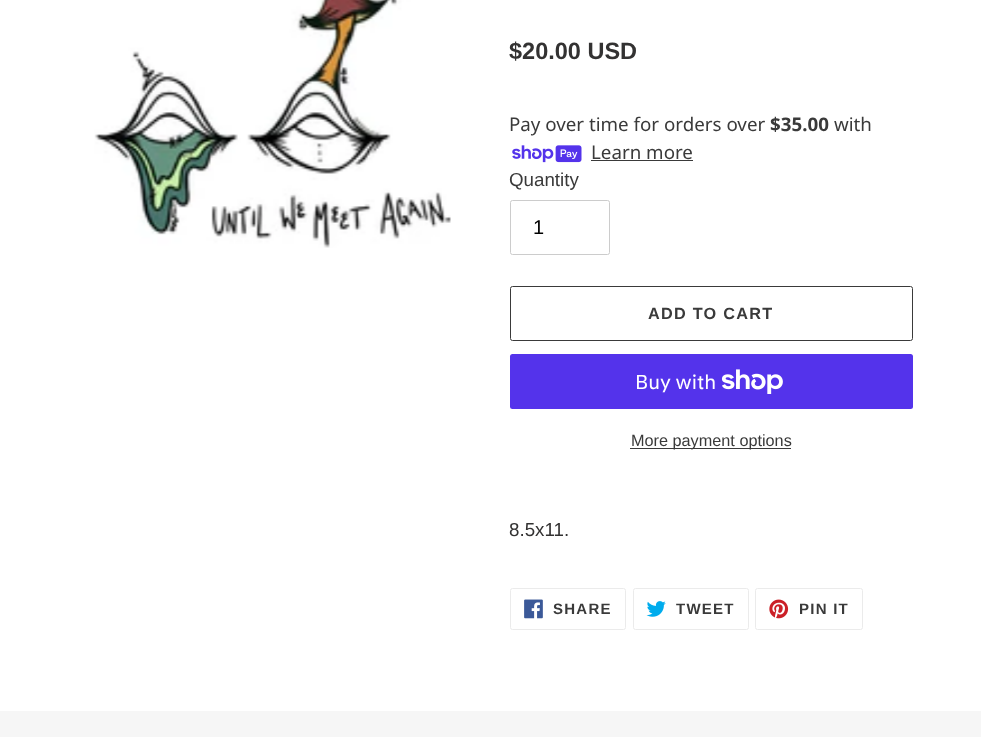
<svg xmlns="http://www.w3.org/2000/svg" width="981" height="737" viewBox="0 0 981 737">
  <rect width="100%" height="100%" fill="#ffffff"/>
  <image x="94" y="0" width="357" height="248" href="img1.png"/>
  <text x="509" y="59" font-family="Liberation Sans" font-size="23.5" font-weight="bold" fill="#333232">$20.00 USD</text>
  <text x="509" y="131" font-family="Noto Sans" font-size="18.75" fill="#3a3a3a">Pay over time for orders over</text>
  <text x="770" y="131" font-family="Noto Sans" font-size="18.75" font-weight="bold" fill="#3a3a3a">$35.00</text>
  <text x="834" y="131" font-family="Noto Sans" font-size="18.75" fill="#3a3a3a">with</text>
  <image x="512" y="145" width="70" height="18" href="img2.png"/>
  <text x="591" y="159" font-family="Noto Sans" font-size="18.75" fill="#3a3a3a">Learn more</text>
  <rect x="591" y="160" width="102" height="1" fill="#3a3a3a"/>
  <text x="509" y="186" font-family="Liberation Sans" font-size="18.75" fill="#3a3a3a">Quantity</text>
  <rect x="510.5" y="200.5" width="99" height="54" rx="2" fill="none" stroke="#cccccc"/>
  <text x="533" y="234" font-family="Liberation Sans" font-size="20" fill="#000000">1</text>
  <rect x="510.5" y="286.5" width="402" height="54" rx="2" fill="none" stroke="#3a3a3a"/>
  <text x="648" y="319" font-family="Liberation Sans" font-size="16.25" font-weight="bold" letter-spacing="1.25" fill="#3a3a3a">ADD TO CART</text>
  <rect x="510" y="354" width="403" height="55" rx="2.5" fill="#5433eb"/>
  <text x="635" y="389" font-family="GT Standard" font-size="20" fill="#ffffff">Buy with</text>
  <image x="721" y="369" width="62" height="25" href="img3.png"/>
  <rect x="630" y="448" width="161" height="1" fill="#3a3a3a"/>
  <text x="631" y="446" font-family="Liberation Sans" font-size="16.25" fill="#3a3a3a">More payment options</text>
  <text x="509" y="536" font-family="Liberation Sans" font-size="18.75" fill="#333232">8.5x11.</text>
  <rect x="510.5" y="588.5" width="115" height="41" rx="2" fill="none" stroke="#ebebeb"/>
  <image x="524" y="599" width="19" height="20" href="img4.png"/>
  <text x="553" y="614" font-family="Liberation Sans" font-size="15" font-weight="bold" letter-spacing="1.25" fill="#3a3a3a">SHARE</text>
  <rect x="633.5" y="588.5" width="115" height="41" rx="2" fill="none" stroke="#ebebeb"/>
  <image x="646" y="601" width="20" height="16" href="img5.png"/>
  <text x="676" y="614" font-family="Liberation Sans" font-size="15" font-weight="bold" letter-spacing="1.25" fill="#3a3a3a">TWEET</text>
  <rect x="755.5" y="588.5" width="107" height="41" rx="2" fill="none" stroke="#ebebeb"/>
  <image x="769" y="599" width="20" height="20" href="img6.png"/>
  <text x="799" y="614" font-family="Liberation Sans" font-size="15" font-weight="bold" letter-spacing="1.25" fill="#3a3a3a">PIN IT</text>
  <rect x="0" y="711" width="981" height="26" fill="#f6f6f6"/>
</svg>
